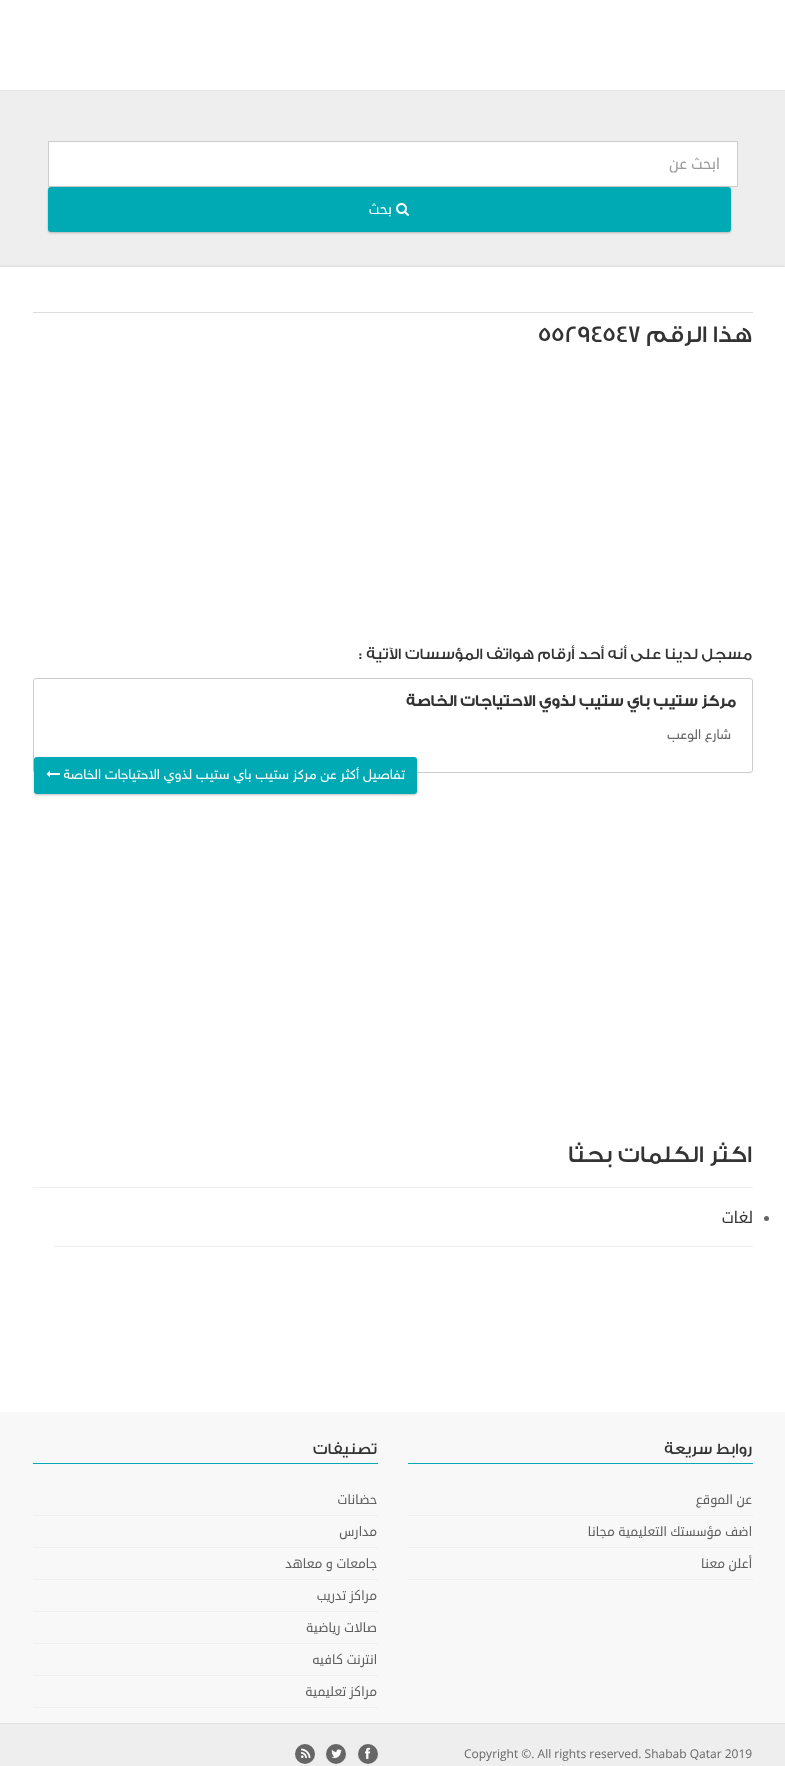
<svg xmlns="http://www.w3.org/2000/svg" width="785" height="1766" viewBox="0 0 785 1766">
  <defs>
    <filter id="blur1" x="-50%" y="-200%" width="200%" height="500%"><feGaussianBlur stdDeviation="1"/></filter>
    <clipPath id="clip1"><rect x="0" y="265" width="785" height="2"/></clipPath>
  </defs>
  <rect width="100%" height="100%" fill="#ffffff"/>
  <rect x="0" y="90" width="785" height="1" fill="#e6e6e6"/>
  <rect x="0" y="91" width="785" height="176" fill="#eeeeee"/>
  <rect x="48.5" y="141.5" width="689" height="45" fill="#ffffff" stroke="#cccccc"/>
  <text x="720" y="169" font-family="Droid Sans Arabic" font-size="15" direction="rtl" fill="#999999">ابحث عن</text>
  <rect x="48" y="188" width="683" height="45" rx="3" fill="#000000" fill-opacity="0.25" filter="url(#blur1)"/>
  <rect x="48" y="187" width="683" height="45" rx="3" fill="#00aab5"/>
  <image x="396" y="203" width="13" height="13" href="img1.png"/>
  <text x="392" y="214" font-family="Droid Sans Arabic" font-size="14" direction="rtl" fill="#ffffff">بحث</text>
  <g clip-path="url(#clip1)">
    <rect x="0" y="265" width="785" height="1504" fill="#000000" fill-opacity="0.05" filter="url(#blur1)"/>
  </g>
  <rect x="33" y="312" width="720" height="1" fill="#dcdcdc"/>
  <text x="752" y="342" font-family="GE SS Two" font-size="24" font-weight="500" direction="rtl" fill="#333333">هذا الرقم</text>
  <text x="538" y="342" font-family="GE SS Two" font-size="24" font-weight="500" fill="#333333">55294547</text>
  <text x="752" y="659" font-family="GE SS Two" font-size="16" font-weight="500" direction="rtl" fill="#333333">مسجل لدينا على أنه أحد أرقام هواتف المؤسسات الآتية :</text>
  <rect x="33.5" y="678.5" width="719" height="94" rx="2.5" fill="none" stroke="#cccccc"/>
  <text x="736" y="706" font-family="GE SS Two" font-size="16" font-weight="bold" direction="rtl" fill="#333333">مركز ستيب باي ستيب لذوي الاحتياجات الخاصة</text>
  <text x="731" y="739" font-family="'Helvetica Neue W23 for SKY'" font-size="14" direction="rtl" fill="#666666">شارع الوعب</text>
  <rect x="34" y="758" width="383" height="37" rx="3" fill="#000000" fill-opacity="0.25" filter="url(#blur1)"/>
  <rect x="34" y="757" width="383" height="37" rx="3" fill="#00aab5"/>
  <text x="405" y="779" font-family="'Helvetica Neue W23 for SKY'" font-size="14" direction="rtl" fill="#ffffff">تفاصيل أكثر عن مركز ستيب باي ستيب لذوي الاحتياجات الخاصة</text>
  <image x="46" y="771" width="14" height="6" href="img2.png"/>
  <text x="752" y="1162" font-family="GE SS Two" font-size="24" font-weight="500" direction="rtl" fill="#333333">اكثر الكلمات بحثا</text>
  <rect x="33" y="1187" width="720" height="1" fill="#eeeeee"/>
  <rect x="53" y="1246" width="700" height="1" fill="#efefef"/>
  <circle cx="766.5" cy="1218.5" r="2.5" fill="#666666"/>
  <text x="753" y="1223" font-family="Droid Sans Arabic" font-size="16" direction="rtl" fill="#333333">لغات</text>
  <rect x="0" y="1412" width="785" height="311" fill="#f8f8f8"/>
  <rect x="408" y="1463" width="345" height="1" fill="#00aab5"/>
  <text x="752" y="1454" font-family="GE SS Two" font-size="16" font-weight="500" direction="rtl" fill="#333333">روابط سريعة</text>
  <rect x="408" y="1515" width="345" height="1" fill="#efefef"/>
  <text x="752" y="1504" font-family="Droid Sans Arabic" font-size="13" direction="rtl" fill="#5e5e5e">عن الموقع</text>
  <rect x="408" y="1547" width="345" height="1" fill="#efefef"/>
  <text x="752" y="1536" font-family="Droid Sans Arabic" font-size="13" direction="rtl" fill="#5e5e5e">اضف مؤسستك التعليمية مجانا</text>
  <rect x="408" y="1579" width="345" height="1" fill="#efefef"/>
  <text x="752" y="1568" font-family="Droid Sans Arabic" font-size="13" direction="rtl" fill="#5e5e5e">أعلن معنا</text>
  <rect x="33" y="1463" width="345" height="1" fill="#00aab5"/>
  <text x="377" y="1454" font-family="GE SS Two" font-size="16" font-weight="500" direction="rtl" fill="#333333">تصنيفات</text>
  <rect x="33" y="1515" width="345" height="1" fill="#efefef"/>
  <text x="377" y="1504" font-family="Droid Sans Arabic" font-size="13" direction="rtl" fill="#5e5e5e">حضانات</text>
  <rect x="33" y="1547" width="345" height="1" fill="#efefef"/>
  <text x="377" y="1536" font-family="Droid Sans Arabic" font-size="13" direction="rtl" fill="#5e5e5e">مدارس</text>
  <rect x="33" y="1579" width="345" height="1" fill="#efefef"/>
  <text x="377" y="1568" font-family="Droid Sans Arabic" font-size="13" direction="rtl" fill="#5e5e5e">جامعات و معاهد</text>
  <rect x="33" y="1611" width="345" height="1" fill="#efefef"/>
  <text x="377" y="1600" font-family="Droid Sans Arabic" font-size="13" direction="rtl" fill="#5e5e5e">مراكز تدريب</text>
  <rect x="33" y="1643" width="345" height="1" fill="#efefef"/>
  <text x="377" y="1632" font-family="Droid Sans Arabic" font-size="13" direction="rtl" fill="#5e5e5e">صالات رياضية</text>
  <rect x="33" y="1675" width="345" height="1" fill="#efefef"/>
  <text x="377" y="1664" font-family="Droid Sans Arabic" font-size="13" direction="rtl" fill="#5e5e5e">انترنت كافيه</text>
  <rect x="33" y="1707" width="345" height="1" fill="#efefef"/>
  <text x="377" y="1696" font-family="Droid Sans Arabic" font-size="13" direction="rtl" fill="#5e5e5e">مراكز تعليمية</text>
  <rect x="0" y="1724" width="785" height="42" fill="#eeeeee"/>
  <rect x="0" y="1723" width="785" height="1" fill="#e1e1e1"/>
  <text x="464" y="1758" font-family="Open Sans" font-size="12" fill="#666666">Copyright ©. All rights reserved. Shabab Qatar 2019</text>
  <circle cx="368" cy="1754" r="10" fill="#666666"/>
  <image x="365" y="1747" width="6" height="12" href="img3.png"/>
  <circle cx="336" cy="1754" r="10" fill="#666666"/>
  <image x="331" y="1749" width="11" height="9" href="img4.png"/>
  <circle cx="305" cy="1754" r="10" fill="#666666"/>
  <image x="301" y="1748" width="10" height="10" href="img5.png"/>
</svg>
